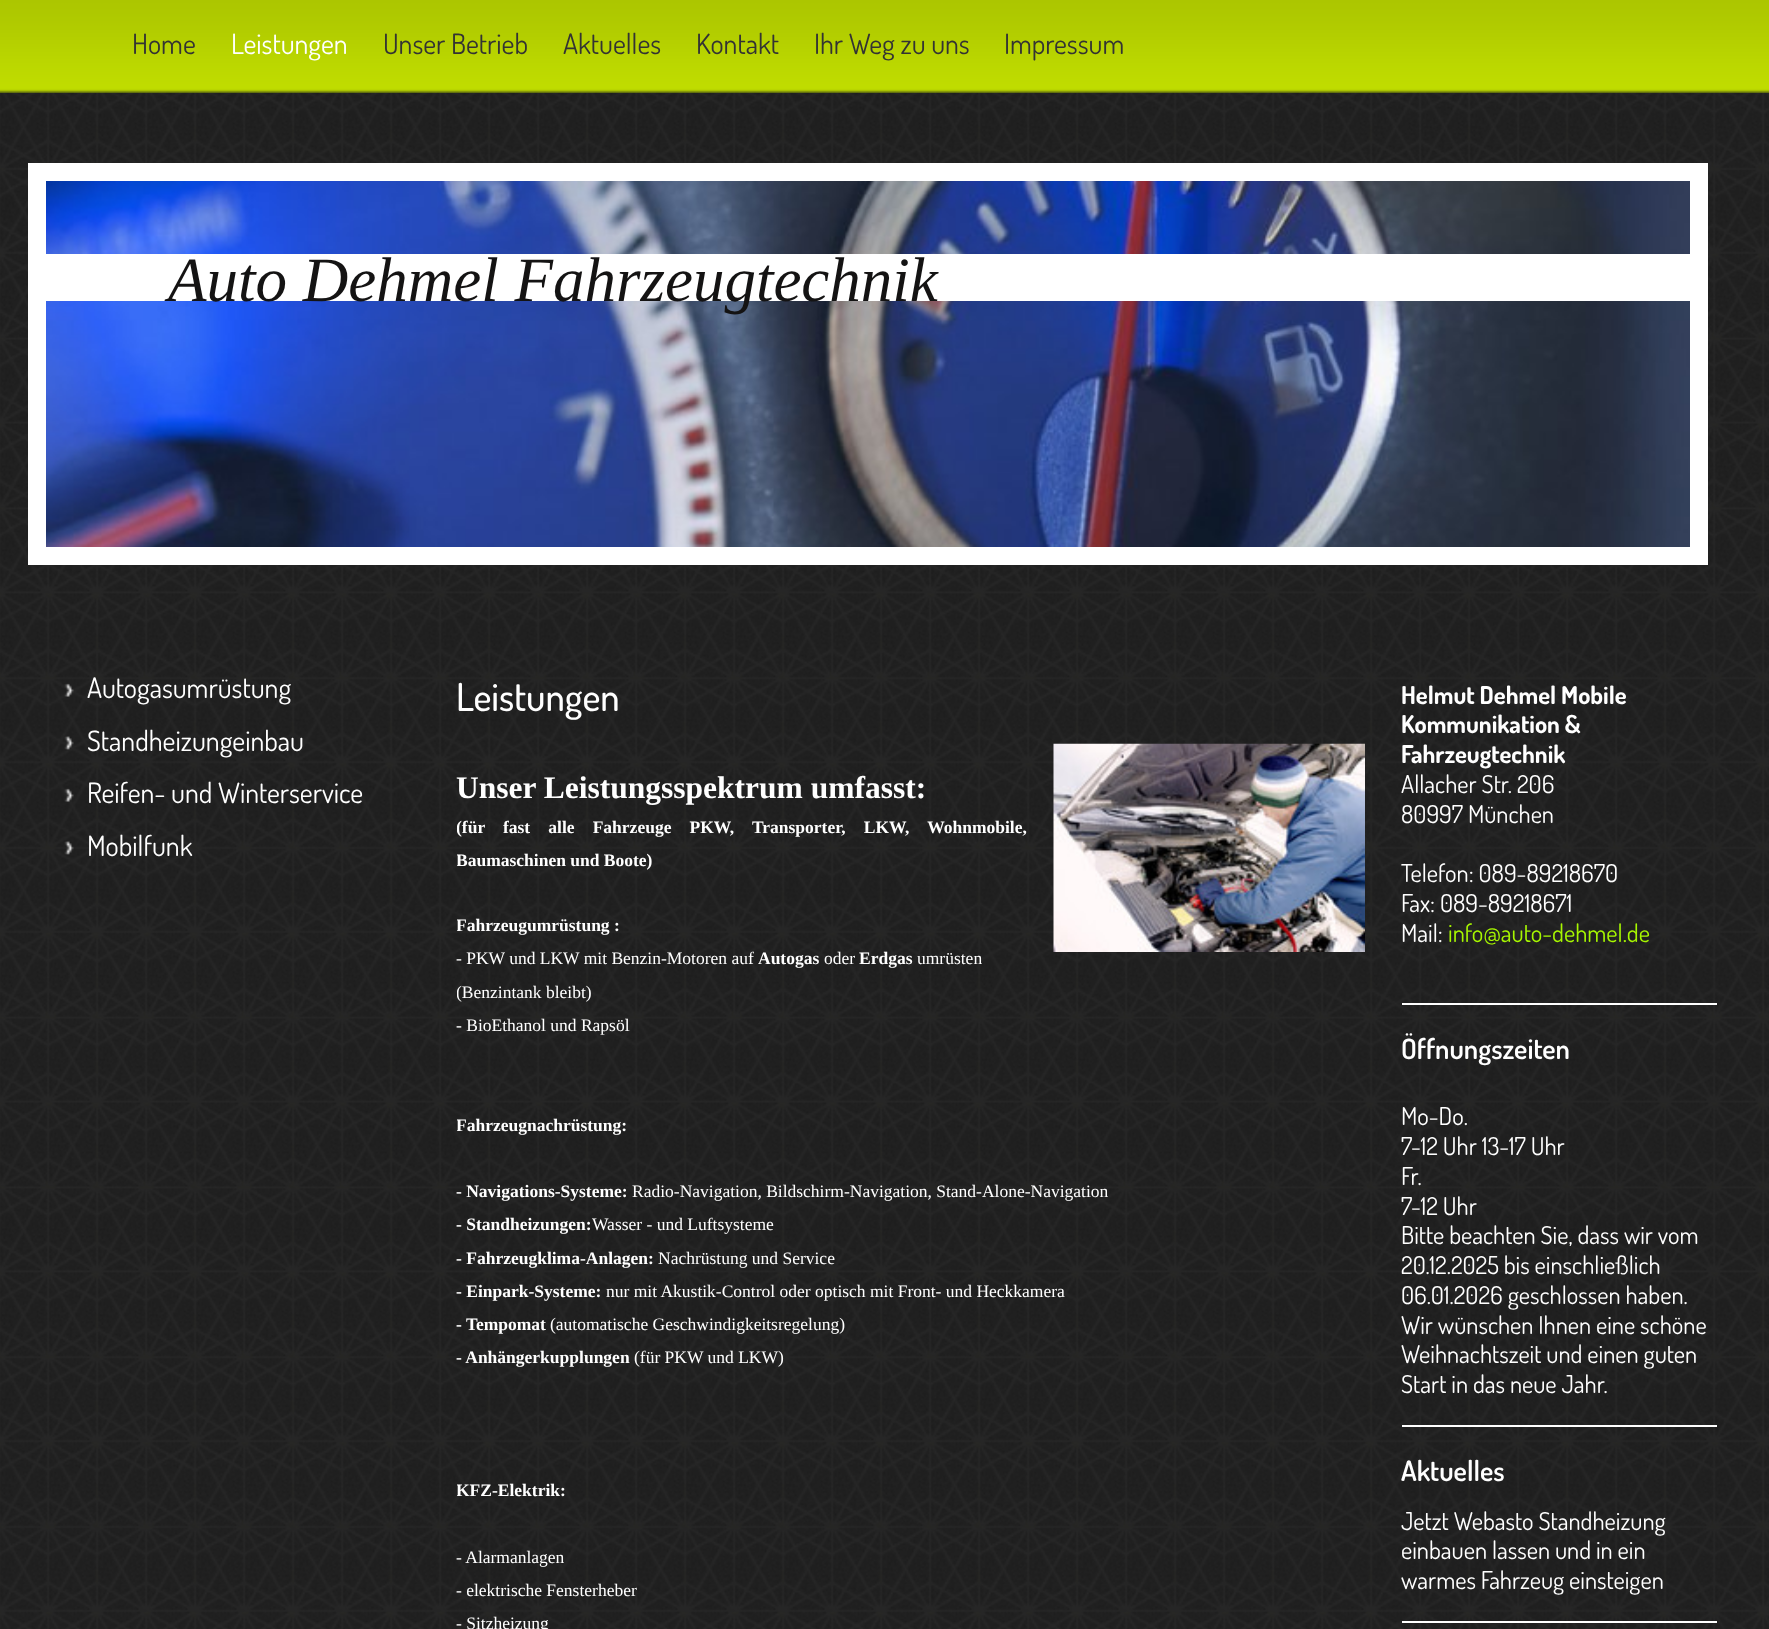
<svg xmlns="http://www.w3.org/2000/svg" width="1769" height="1629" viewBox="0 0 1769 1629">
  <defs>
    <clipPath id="clip1"><rect x="457" y="737" width="910" height="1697"/></clipPath>
  </defs>
  <rect width="100%" height="100%" fill="#ffffff"/>
  <image x="0" y="92" width="1769" height="1537" href="img1.png"/>
  <image x="0" y="0" width="1769" height="93" href="img2.png"/>
  <text x="132" y="54" font-family="Dosis" font-size="28" fill="#333333">Home</text>
  <text x="231" y="54" font-family="Dosis" font-size="28" fill="#ffffff">Leistungen</text>
  <text x="383" y="54" font-family="Dosis" font-size="28" fill="#333333">Unser Betrieb</text>
  <text x="563" y="54" font-family="Dosis" font-size="28" fill="#333333">Aktuelles</text>
  <text x="696" y="54" font-family="Dosis" font-size="28" fill="#333333">Kontakt</text>
  <text x="814" y="54" font-family="Dosis" font-size="28" fill="#333333">Ihr Weg zu uns</text>
  <text x="1004" y="54" font-family="Dosis" font-size="28" fill="#333333">Impressum</text>
  <image x="46" y="181" width="1644" height="366" href="img3.png"/>
  <rect x="37" y="172" width="1662" height="384" fill="none" stroke="#ffffff" stroke-width="18"/>
  <rect x="46" y="254" width="1644" height="47" fill="#ffffff"/>
  <text x="168" y="301" font-family="Liberation Serif" font-size="63" font-style="italic" fill="#141313">Auto Dehmel Fahrzeugtechnik</text>
  <image x="64" y="683" width="10" height="14" href="img4.png"/>
  <text x="87" y="698" font-family="Dosis" font-size="28" fill="#ffffff">Autogasumrüstung</text>
  <image x="64" y="736" width="10" height="14" href="img5.png"/>
  <text x="87" y="751" font-family="Dosis" font-size="28" fill="#ffffff">Standheizungeinbau</text>
  <image x="64" y="788" width="10" height="14" href="img6.png"/>
  <text x="87" y="803" font-family="Dosis" font-size="28" fill="#ffffff">Reifen- und Winterservice</text>
  <image x="64" y="841" width="10" height="14" href="img7.png"/>
  <text x="87" y="856" font-family="Dosis" font-size="28" fill="#ffffff">Mobilfunk</text>
  <text x="456" y="711" font-family="Dosis" font-size="38.5" font-weight="500" fill="#ffffff">Leistungen</text>
  <text x="456" y="798" font-family="Liberation Serif" font-size="31.5" font-weight="bold" fill="#ffffff">Unser Leistungsspektrum umfasst:</text>
  <g clip-path="url(#clip1)">
    <text x="456" y="833" word-spacing="13.75" font-family="Liberation Serif" font-size="17.5" font-weight="bold" fill="#ffffff">(für fast alle Fahrzeuge PKW, Transporter, LKW, Wohnmobile,</text>
    <text x="456" y="866" font-family="Liberation Serif" font-size="17.5" font-weight="bold" fill="#ffffff">Baumaschinen und Boote)</text>
    <text x="456" y="931" font-family="Liberation Serif" font-size="17.5" font-weight="bold" fill="#ffffff">Fahrzeugumrüstung :</text>
  </g>
  <text x="456" y="964" font-family="Liberation Serif" font-size="17.5" fill="#ffffff">- PKW und LKW mit Benzin-Motoren auf</text>
  <text x="758" y="964" font-family="Liberation Serif" font-size="17.5" font-weight="bold" fill="#ffffff">Autogas</text>
  <text x="824" y="964" font-family="Liberation Serif" font-size="17.5" fill="#ffffff">oder</text>
  <text x="859" y="964" font-family="Liberation Serif" font-size="17.5" font-weight="bold" fill="#ffffff">Erdgas</text>
  <text x="917" y="964" font-family="Liberation Serif" font-size="17.5" fill="#ffffff">umrüsten</text>
  <g clip-path="url(#clip1)">
    <text x="456" y="998" font-family="Liberation Serif" font-size="17.5" fill="#ffffff">(Benzintank bleibt)</text>
  </g>
  <text x="456" y="1031" font-family="Liberation Serif" font-size="17.5" fill="#ffffff">- BioEthanol und Rapsöl</text>
  <g clip-path="url(#clip1)">
    <text x="456" y="1131" font-family="Liberation Serif" font-size="17.5" font-weight="bold" fill="#ffffff">Fahrzeugnachrüstung:</text>
  </g>
  <text x="456" y="1197" font-family="Liberation Serif" font-size="17.5" font-weight="bold" fill="#ffffff">- Navigations-Systeme:</text>
  <text x="632" y="1197" font-family="Liberation Serif" font-size="17.5" fill="#ffffff">Radio-Navigation, Bildschirm-Navigation, Stand-Alone-Navigation</text>
  <text x="456" y="1230" font-family="Liberation Serif" font-size="17.5" font-weight="bold" fill="#ffffff">- Standheizungen:</text>
  <text x="592" y="1230" font-family="Liberation Serif" font-size="17.5" fill="#ffffff">Wasser - und Luftsysteme</text>
  <text x="456" y="1264" font-family="Liberation Serif" font-size="17.5" font-weight="bold" fill="#ffffff">- Fahrzeugklima-Anlagen:</text>
  <text x="658" y="1264" font-family="Liberation Serif" font-size="17.5" fill="#ffffff">Nachrüstung und Service</text>
  <text x="456" y="1297" font-family="Liberation Serif" font-size="17.5" font-weight="bold" fill="#ffffff">- Einpark-Systeme:</text>
  <text x="606" y="1297" font-family="Liberation Serif" font-size="17.5" fill="#ffffff">nur mit Akustik-Control oder optisch mit Front- und Heckkamera</text>
  <text x="456" y="1330" font-family="Liberation Serif" font-size="17.5" font-weight="bold" fill="#ffffff">- Tempomat</text>
  <text x="550" y="1330" font-family="Liberation Serif" font-size="17.5" fill="#ffffff">(automatische Geschwindigkeitsregelung)</text>
  <text x="456" y="1363" font-family="Liberation Serif" font-size="17.5" font-weight="bold" fill="#ffffff">- Anhängerkupplungen</text>
  <text x="634" y="1363" font-family="Liberation Serif" font-size="17.5" fill="#ffffff">(für PKW und LKW)</text>
  <g clip-path="url(#clip1)">
    <text x="456" y="1496" font-family="Liberation Serif" font-size="17.5" font-weight="bold" fill="#ffffff">KFZ-Elektrik:</text>
  </g>
  <text x="456" y="1563" font-family="Liberation Serif" font-size="17.5" fill="#ffffff">- Alarmanlagen</text>
  <text x="456" y="1596" font-family="Liberation Serif" font-size="17.5" fill="#ffffff">- elektrische Fensterheber</text>
  <text x="456" y="1629" font-family="Liberation Serif" font-size="17.5" fill="#ffffff">- Sitzheizung</text>
  <image x="1053" y="743" width="312" height="209" href="img8.png"/>
  <text x="1401" y="704" font-family="Dosis" font-size="24.5" font-weight="bold" fill="#ffffff">Helmut Dehmel Mobile</text>
  <text x="1401" y="733" font-family="Dosis" font-size="24.5" font-weight="bold" fill="#ffffff">Kommunikation &amp;</text>
  <text x="1401" y="763" font-family="Dosis" font-size="24.5" font-weight="bold" fill="#ffffff">Fahrzeugtechnik</text>
  <text x="1401" y="793" font-family="Dosis" font-size="24.5" fill="#ffffff">Allacher Str. 206</text>
  <text x="1401" y="823" font-family="Dosis" font-size="24.5" fill="#ffffff">80997 München</text>
  <text x="1401" y="882" font-family="Dosis" font-size="24.5" fill="#ffffff">Telefon: 089-89218670</text>
  <text x="1401" y="912" font-family="Dosis" font-size="24.5" fill="#ffffff">Fax: 089-89218671</text>
  <text x="1401" y="942" font-family="Dosis" font-size="24.5" fill="#ffffff">Mail:</text>
  <text x="1448" y="942" font-family="Dosis" font-size="24.5" fill="#a7f700">info@auto-dehmel.de</text>
  <rect x="1402" y="1003" width="315" height="2" fill="#ffffff"/>
  <text x="1401" y="1059" font-family="Dosis" font-size="28" font-weight="600" fill="#ffffff">Öffnungszeiten</text>
  <text x="1401" y="1125" font-family="Dosis" font-size="24.5" fill="#ffffff">Mo-Do.</text>
  <text x="1401" y="1155" font-family="Dosis" font-size="24.5" fill="#ffffff">7-12 Uhr 13-17 Uhr</text>
  <text x="1401" y="1185" font-family="Dosis" font-size="24.5" fill="#ffffff">Fr.</text>
  <text x="1401" y="1215" font-family="Dosis" font-size="24.5" fill="#ffffff">7-12 Uhr</text>
  <text x="1401" y="1244" font-family="Dosis" font-size="24.5" fill="#ffffff">Bitte beachten Sie, dass wir vom</text>
  <text x="1401" y="1274" font-family="Dosis" font-size="24.5" fill="#ffffff">20.12.2025 bis einschließlich</text>
  <text x="1401" y="1304" font-family="Dosis" font-size="24.5" fill="#ffffff">06.01.2026 geschlossen haben.</text>
  <text x="1401" y="1334" font-family="Dosis" font-size="24.5" fill="#ffffff">Wir wünschen Ihnen eine schöne</text>
  <text x="1401" y="1363" font-family="Dosis" font-size="24.5" fill="#ffffff">Weihnachtszeit und einen guten</text>
  <text x="1401" y="1393" font-family="Dosis" font-size="24.5" fill="#ffffff">Start in das neue Jahr.</text>
  <rect x="1402" y="1425" width="315" height="2" fill="#ffffff"/>
  <text x="1401" y="1481" font-family="Dosis" font-size="28" font-weight="600" fill="#ffffff">Aktuelles</text>
  <text x="1401" y="1530" font-family="Dosis" font-size="24.5" fill="#ffffff">Jetzt Webasto Standheizung</text>
  <text x="1401" y="1559" font-family="Dosis" font-size="24.5" fill="#ffffff">einbauen lassen und in ein</text>
  <text x="1401" y="1589" font-family="Dosis" font-size="24.5" fill="#ffffff">warmes Fahrzeug einsteigen</text>
  <rect x="1402" y="1621" width="315" height="2" fill="#ffffff"/>
</svg>
